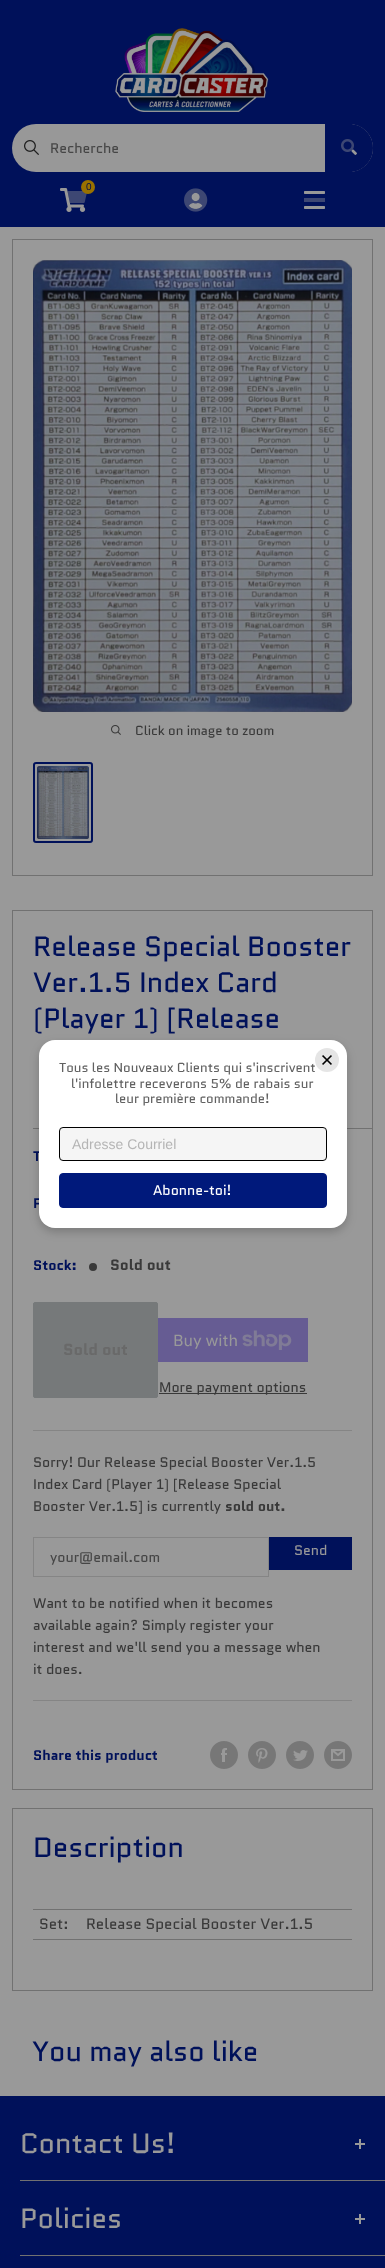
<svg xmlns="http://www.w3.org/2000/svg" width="385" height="2268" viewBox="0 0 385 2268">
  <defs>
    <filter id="blur1" x="-50%" y="-200%" width="200%" height="500%"><feGaussianBlur stdDeviation="5"/></filter>
  </defs>
  <rect width="100%" height="100%" fill="#999999"/>
  <rect x="0" y="0" width="385" height="227" fill="#00115a"/>
  <image x="115" y="28" width="154" height="84" href="img1.png"/>
  <rect x="12" y="124" width="361" height="48" rx="24" fill="#989898"/>
  <image x="24" y="140" width="15" height="15" href="img2.png"/>
  <text x="50" y="153" font-family="Quantico" font-size="14" fill="#464646">Recherche</text>
  <path d="M325 124H349C362.5 124 373 134.5 373 148C373 161.5 362.5 172 349 172H325Z" fill="#00115a"/>
  <image x="351" y="149" width="6" height="6" href="img4.png"/>
  <image x="341" y="139" width="13" height="13" href="img3.png"/>
  <image x="60" y="188" width="26" height="24" href="img5.png"/>
  <image x="67" y="191" width="20" height="12" href="img6.png"/>
  <circle cx="88" cy="187" r="7" fill="#997100"/>
  <text x="86" y="190" font-family="Liberation Sans" font-size="10" fill="#000e49">0</text>
  <image x="188" y="192" width="15" height="17" href="img8.png"/>
  <image x="184" y="188" width="24" height="24" href="img7.png"/>
  <image x="304" y="191" width="21" height="18" href="img9.png"/>
  <rect x="304" y="198" width="21" height="4" fill="#3d4773"/>
  <rect x="12.5" y="239.5" width="360" height="636" fill="none" stroke="#717171"/>
  <image x="33" y="260" width="319" height="452" href="img10.png"/>
  <image x="111" y="725" width="10" height="10" href="img11.png"/>
  <text x="135" y="735" font-family="Quantico" font-size="13" fill="#393939">Click on image to zoom</text>
  <rect x="34" y="763" width="58" height="79" rx="2" fill="none" stroke="#00115a" stroke-width="2"/>
  <image x="37" y="766" width="52" height="73" href="img12.png"/>
  <rect x="12.5" y="910.5" width="360" height="879" fill="none" stroke="#717171"/>
  <text x="33" y="956" font-family="Quantico" font-size="28" fill="#00115a">Release Special Booster</text>
  <text x="33" y="992" font-family="Quantico" font-size="28" fill="#00115a">Ver.1.5 Index Card</text>
  <text x="33" y="1028" font-family="Quantico" font-size="28" fill="#00115a">(Player 1) [Release</text>
  <rect x="33" y="1128" width="339" height="1" fill="#717171"/>
  <text x="33" y="1161" font-family="Quantico" font-size="14" font-weight="bold" fill="#00115a">T</text>
  <text x="33" y="1208" font-family="Quantico" font-size="14" font-weight="bold" fill="#00115a">P</text>
  <text x="33" y="1270" font-family="Quantico" font-size="14" font-weight="bold" fill="#00115a">Stock:</text>
  <circle cx="93" cy="1267" r="4" fill="#393939"/>
  <text x="110" y="1270" font-family="Quantico" font-size="15" font-weight="bold" fill="#393939">Sold out</text>
  <rect x="33.5" y="1302.5" width="124" height="95" rx="1.5" fill="#76797a" stroke="#76797a"/>
  <text x="63" y="1355" font-family="Quantico" font-size="16" font-weight="bold" fill="#696969">Sold out</text>
  <rect x="158" y="1318" width="150" height="44" fill="#665c93"/>
  <text x="173" y="1346" font-family="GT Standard" font-size="16" fill="#999999">Buy with</text>
  <image x="242" y="1330" width="50" height="20" href="img13.png"/>
  <rect x="159" y="1393" width="148" height="1" fill="#393939"/>
  <text x="159" y="1392" font-family="Quantico" font-size="14" fill="#393939">More payment options</text>
  <rect x="33" y="1430" width="319" height="1" fill="#858585"/>
  <rect x="33" y="1700" width="319" height="1" fill="#858585"/>
  <text x="33" y="1467" font-family="Quantico" font-size="14" fill="#393939">Sorry! Our Release Special Booster Ver.1.5</text>
  <text x="33" y="1489" font-family="Quantico" font-size="14" fill="#393939">Index Card (Player 1) [Release Special</text>
  <text x="33" y="1511" font-family="Quantico" font-size="14" fill="#393939">Booster Ver.1.5] is currently</text>
  <text x="225" y="1511" font-family="Quantico" font-size="14" font-weight="bold" fill="#393939">sold out.</text>
  <rect x="33.5" y="1537.5" width="235" height="39" fill="none" stroke="#858585"/>
  <text x="50" y="1562" font-family="Quantico" font-size="14" fill="#464646">your@email.com</text>
  <rect x="269" y="1537" width="83" height="33" fill="#00115a"/>
  <text x="294" y="1555" font-family="Quantico" font-size="14" fill="#999999">Send</text>
  <text x="33" y="1608" font-family="Quantico" font-size="14" fill="#393939">Want to be notified when it becomes</text>
  <text x="33" y="1630" font-family="Quantico" font-size="14" fill="#393939">available again? Simply register your</text>
  <text x="33" y="1652" font-family="Quantico" font-size="14" fill="#393939">interest and we'll send you a message when</text>
  <text x="33" y="1674" font-family="Quantico" font-size="14" fill="#393939">it does.</text>
  <text x="33" y="1760" font-family="Quantico" font-size="14" font-weight="bold" fill="#00115a">Share this product</text>
  <image x="210" y="1741" width="28" height="28" href="img14.png"/>
  <image x="248" y="1741" width="28" height="28" href="img15.png"/>
  <image x="286" y="1741" width="28" height="28" href="img16.png"/>
  <image x="324" y="1741" width="28" height="28" href="img17.png"/>
  <rect x="12.5" y="1808.5" width="360" height="182" fill="none" stroke="#717171"/>
  <text x="33" y="1857" font-family="Quantico" font-size="28" fill="#00115a">Description</text>
  <rect x="33" y="1909" width="319" height="1" fill="#717171"/>
  <rect x="33" y="1939" width="319" height="1" fill="#717171"/>
  <text x="39" y="1929" font-family="Quantico" font-size="15" fill="#393939">Set:</text>
  <text x="86" y="1929" font-family="Quantico" font-size="15" fill="#393939">Release Special Booster Ver.1.5</text>
  <text x="32" y="2061" font-family="Quantico" font-size="28" fill="#00115a">You may also like</text>
  <rect x="0" y="2096" width="385" height="172" fill="#00115a"/>
  <rect x="20" y="2180" width="365" height="1" fill="#717171"/>
  <text x="20" y="2153" font-family="Quantico" font-size="28" fill="#999999">Contact Us!</text>
  <rect x="359" y="2139" width="2" height="10" fill="#999999"/>
  <rect x="355" y="2143" width="10" height="2" fill="#999999"/>
  <rect x="20" y="2255" width="365" height="1" fill="#717171"/>
  <text x="20" y="2228" font-family="Quantico" font-size="28" fill="#999999">Policies</text>
  <rect x="359" y="2214" width="2" height="10" fill="#999999"/>
  <rect x="355" y="2218" width="10" height="2" fill="#999999"/>
  <rect x="39" y="1044" width="308" height="188" rx="16" fill="#000000" fill-opacity="0.2" filter="url(#blur1)"/>
  <rect x="39" y="1040" width="308" height="188" rx="16" fill="#ffffff"/>
  <text x="59" y="1072" font-family="Quantico" font-size="13" fill="#616161">Tous les Nouveaux Clients qui s'inscrivent</text>
  <text x="71" y="1088" font-family="Quantico" font-size="13" fill="#616161">l'infolettre receverons 5% de rabais sur</text>
  <text x="115" y="1103" font-family="Quantico" font-size="13" fill="#616161">leur première commande!</text>
  <rect x="59.5" y="1127.5" width="267" height="33" rx="3.5" fill="#f5f5f5" stroke="#000000"/>
  <text x="72" y="1149" font-family="Liberation Sans" font-size="14" fill="#b5b5b5">Adresse Courriel</text>
  <rect x="59.5" y="1173.5" width="267" height="34" rx="3.5" fill="#00197b" stroke="#00197b"/>
  <text x="153" y="1195" font-family="Quantico" font-size="14" fill="#ffffff">Abonne-toi!</text>
  <circle cx="327" cy="1060" r="12" fill="#e5e5e5"/>
  <image x="322" y="1055" width="10" height="10" href="img18.png"/>
</svg>
